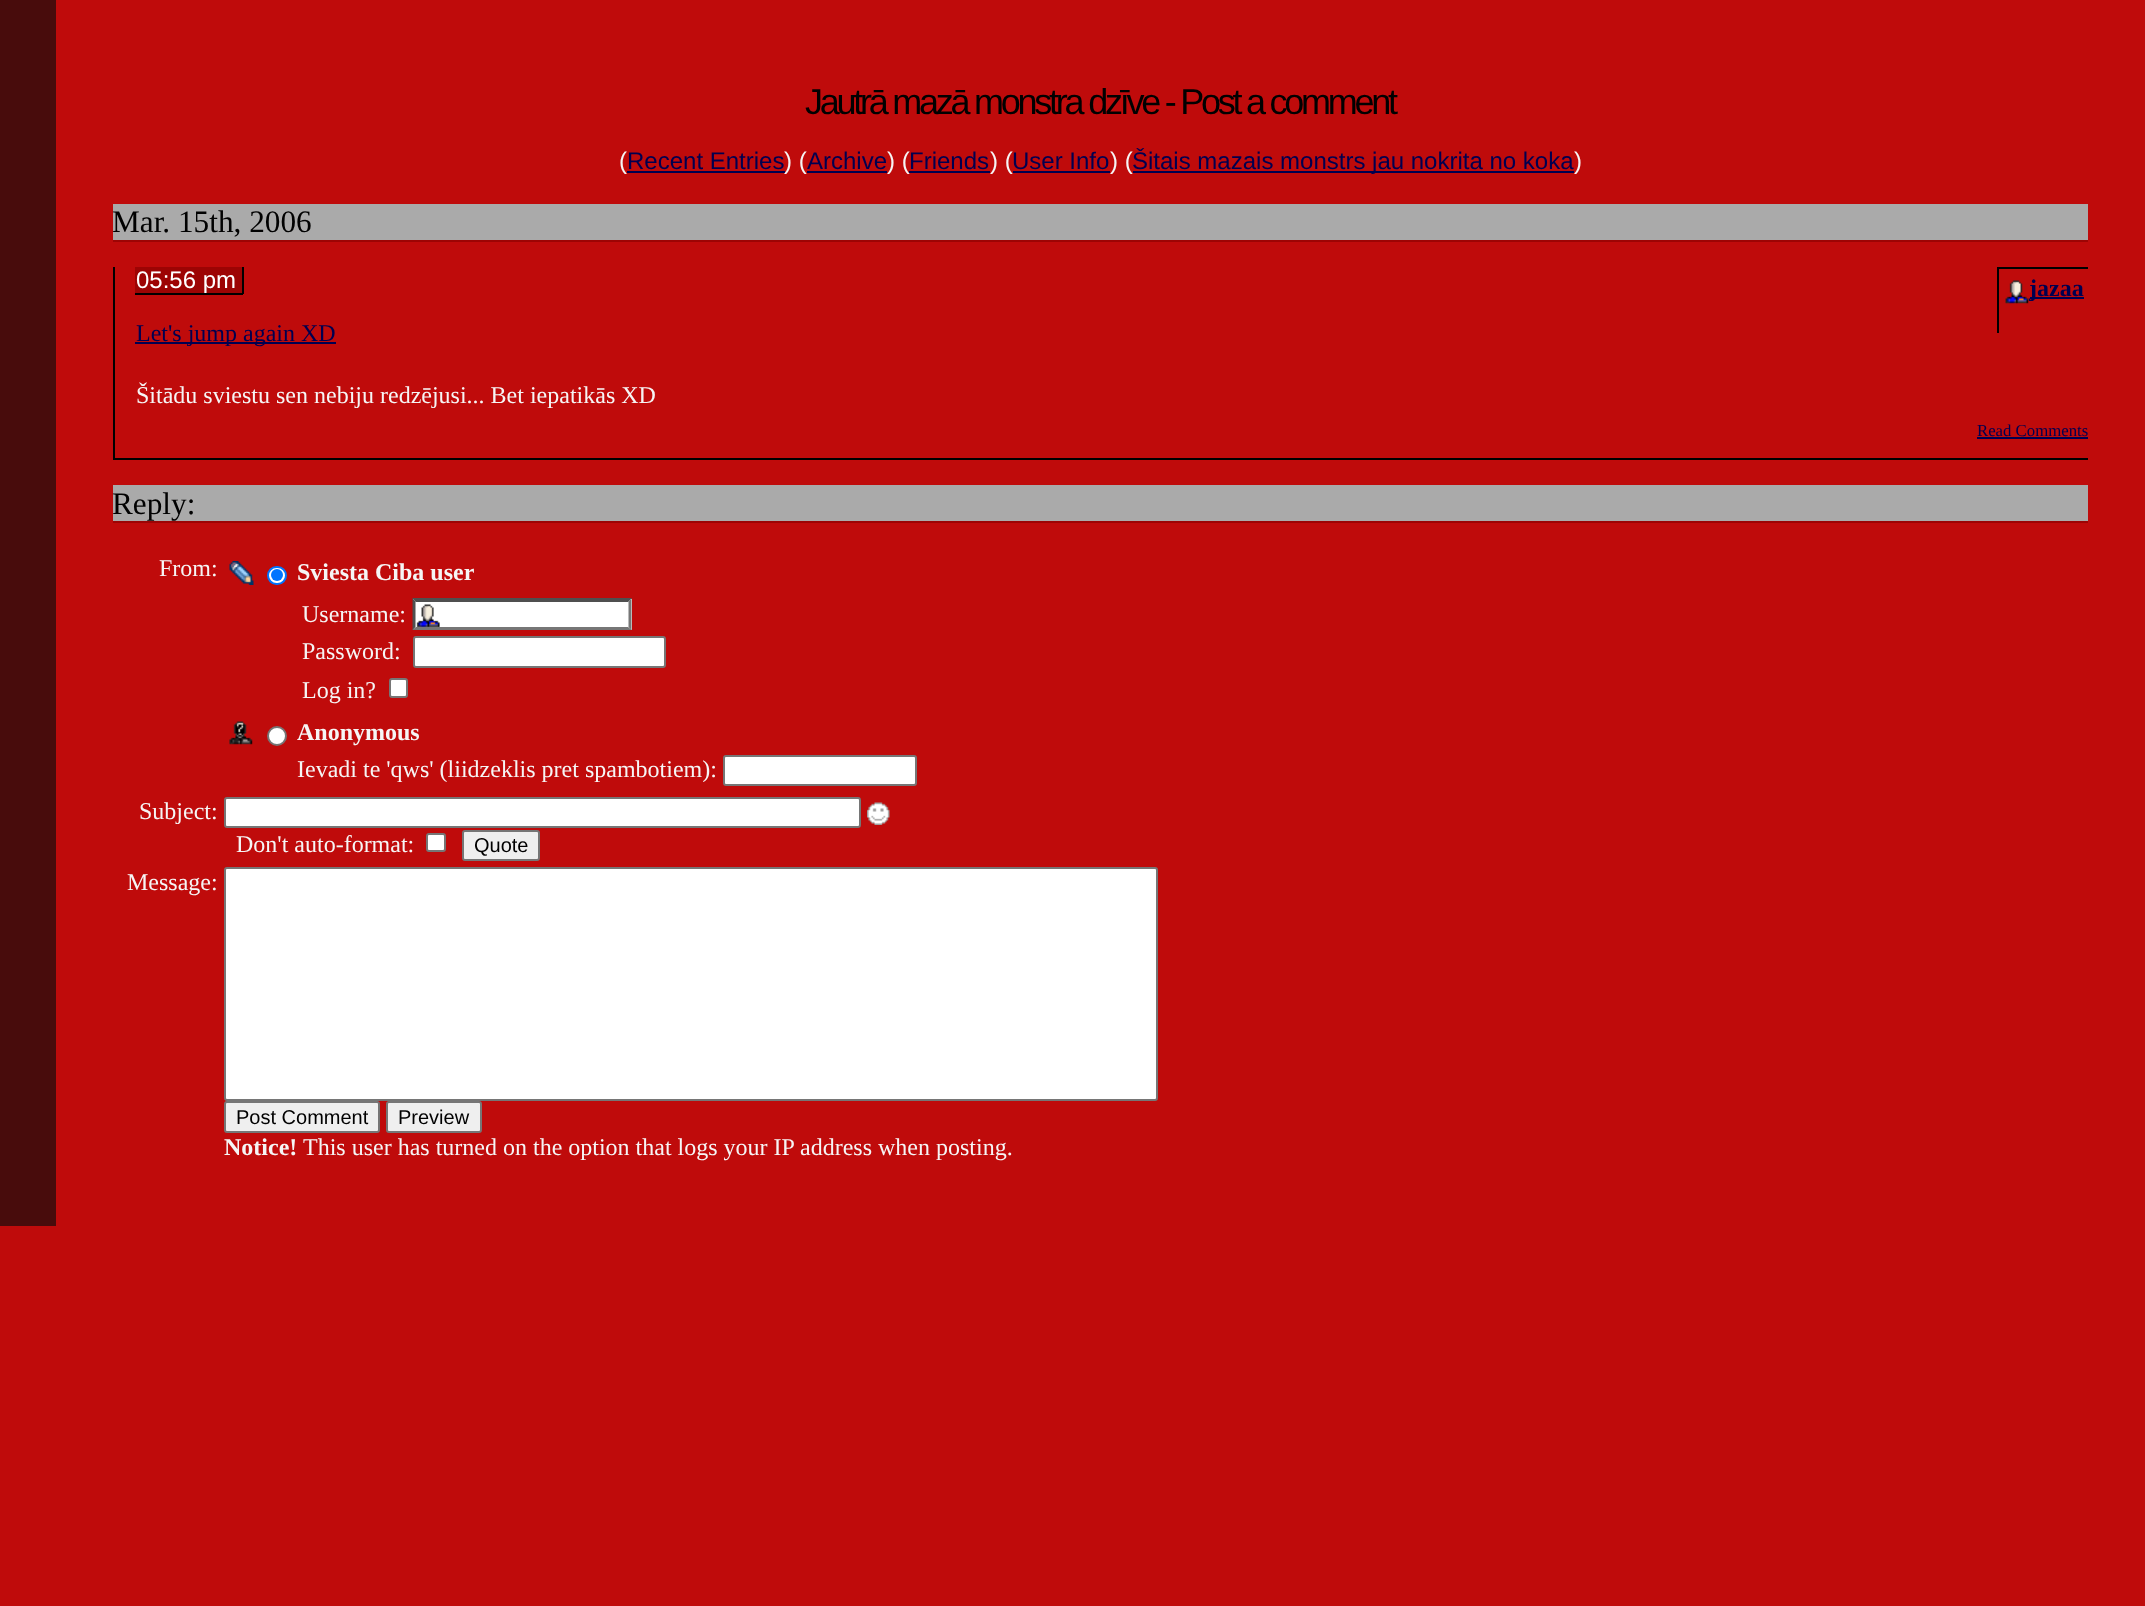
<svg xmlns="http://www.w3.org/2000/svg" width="2145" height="1606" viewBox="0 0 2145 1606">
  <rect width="100%" height="100%" fill="#bf0b0b"/>
  <rect x="0" y="0" width="56" height="1226" fill="#480c0c"/>
  <text x="805" y="114" font-family="Liberation Sans" font-size="36" letter-spacing="-3.25" fill="#010101">Jautrā mazā monstra dzīve - Post a comment</text>
  <text x="619" y="169" font-family="Liberation Sans" font-size="24" fill="#f6f5f5">(</text>
  <text x="627" y="169" font-family="Liberation Sans" font-size="24" fill="#000050">Recent Entries</text>
  <rect x="627" y="171" width="158" height="2" fill="#000050"/>
  <text x="784" y="169" font-family="Liberation Sans" font-size="24" fill="#f6f5f5">) (</text>
  <text x="807" y="169" font-family="Liberation Sans" font-size="24" fill="#000050">Archive</text>
  <text x="887" y="169" font-family="Liberation Sans" font-size="24" fill="#f6f5f5">) (</text>
  <rect x="807" y="171" width="80" height="2" fill="#000050"/>
  <text x="909" y="169" font-family="Liberation Sans" font-size="24" fill="#000050">Friends</text>
  <rect x="909" y="171" width="81" height="2" fill="#000050"/>
  <text x="990" y="169" font-family="Liberation Sans" font-size="24" fill="#f6f5f5">) (</text>
  <text x="1012" y="169" font-family="Liberation Sans" font-size="24" fill="#000050">User Info</text>
  <rect x="1013" y="171" width="97" height="2" fill="#000050"/>
  <text x="1110" y="169" font-family="Liberation Sans" font-size="24" fill="#f6f5f5">) (</text>
  <rect x="1133" y="171" width="441" height="2" fill="#000050"/>
  <text x="1132" y="169" font-family="Liberation Sans" font-size="24" fill="#000050">Šitais mazais monstrs jau nokrita no koka</text>
  <text x="1574" y="169" font-family="Liberation Sans" font-size="24" fill="#f6f5f5">)</text>
  <rect x="113" y="204" width="1975" height="36" fill="#aaaaaa"/>
  <rect x="113" y="240" width="1975" height="2" fill="#9d0404"/>
  <text x="112" y="232" font-family="Liberation Serif" font-size="31.25" fill="#010101">Mar. 15th, 2006</text>
  <rect x="113" y="458" width="1975" height="2" fill="#000000"/>
  <rect x="113" y="267" width="2" height="192" fill="#000000"/>
  <rect x="135" y="267" width="107" height="26" fill="#9d0404"/>
  <text x="136" y="288" font-family="Liberation Sans" font-size="24" fill="#ffffff">05:56 pm</text>
  <rect x="242" y="267" width="2" height="27" fill="#000000"/>
  <rect x="135" y="293" width="108" height="2" fill="#000000"/>
  <rect x="1997" y="267" width="91" height="2" fill="#000000"/>
  <rect x="1997" y="267" width="2" height="66" fill="#000000"/>
  <image x="2005" y="280" width="24" height="24" href="img1.png"/>
  <rect x="2030" y="297" width="54" height="2" fill="#000050"/>
  <text x="2029" y="296" font-family="Liberation Serif" font-size="24" font-weight="bold" fill="#000050">jazaa</text>
  <rect x="135" y="342" width="201" height="2" fill="#000050"/>
  <text x="136" y="341" font-family="Liberation Serif" font-size="24" fill="#000050">Let's jump again XD</text>
  <text x="136" y="403" font-family="Liberation Serif" font-size="24" fill="#f6f5f5">Šitādu sviestu sen nebiju redzējusi... Bet iepatikās XD</text>
  <text x="1977" y="436" font-family="Liberation Serif" font-size="16.75" fill="#000050">Read Comments</text>
  <rect x="1977" y="437" width="111" height="2" fill="#000050"/>
  <rect x="113" y="485" width="1975" height="36" fill="#aaaaaa"/>
  <rect x="113" y="521" width="1975" height="2" fill="#9d0404"/>
  <text x="112" y="514" font-family="Liberation Serif" font-size="31.25" fill="#010101">Reply:</text>
  <text x="159" y="576" font-family="Liberation Serif" font-size="24" fill="#f6f5f5">From:</text>
  <image x="229" y="561" width="25" height="24" href="img2.png"/>
  <rect x="268" y="567" width="18" height="17" rx="8.5" fill="#ffffff" stroke="#0075ff" stroke-width="2"/>
  <circle cx="277" cy="575" r="6" fill="#0075ff"/>
  <text x="297" y="580" font-family="Liberation Serif" font-size="24" font-weight="bold" fill="#f6f5f5">Sviesta Ciba user</text>
  <text x="302" y="622" font-family="Liberation Serif" font-size="24" fill="#f6f5f5">Username:</text>
  <rect x="413" y="599" width="219" height="31" fill="#ffffff"/>
  <image x="416" y="604" width="24" height="23" href="img3.png"/>
  <path d="M412 598H632L628 602H416Z" fill="#4f4f4f"/>
  <path d="M631.5 598.5V630L628.5 627V601.5Z" fill="#767676"/>
  <path d="M632 630H412L416 627H628Z" fill="#767676"/>
  <path d="M412.5 630V598.5L415.5 601.5V627Z" fill="#4f4f4f"/>
  <text x="302" y="659" font-family="Liberation Serif" font-size="24" fill="#f6f5f5">Password:</text>
  <rect x="414" y="637" width="251" height="30" rx="2" fill="#ffffff" stroke="#767676" stroke-width="2"/>
  <text x="302" y="698" font-family="Liberation Serif" font-size="24" fill="#f6f5f5">Log in?</text>
  <rect x="390" y="679" width="17" height="18" rx="2" fill="#ffffff" stroke="#767676" stroke-width="2"/>
  <image x="229" y="721" width="24" height="24" href="img4.png"/>
  <circle cx="277" cy="736" r="9" fill="#ffffff" stroke="#767676" stroke-width="2"/>
  <text x="297" y="740" font-family="Liberation Serif" font-size="24" font-weight="bold" fill="#f6f5f5">Anonymous</text>
  <text x="297" y="777" font-family="Liberation Serif" font-size="24" fill="#f6f5f5">Ievadi te 'qws' (liidzeklis pret spambotiem):</text>
  <rect x="724" y="756" width="192" height="29" rx="2" fill="#ffffff" stroke="#767676" stroke-width="2"/>
  <text x="139" y="819" font-family="Liberation Serif" font-size="24" fill="#f6f5f5">Subject:</text>
  <rect x="225" y="798" width="635" height="29" rx="2" fill="#ffffff" stroke="#767676" stroke-width="2"/>
  <image x="867" y="802" width="23" height="23" href="img5.png"/>
  <text x="236" y="852" font-family="Liberation Serif" font-size="24" fill="#f6f5f5">Don't auto-format:</text>
  <rect x="427" y="834" width="18" height="17" rx="2" fill="#ffffff" stroke="#767676" stroke-width="2"/>
  <rect x="463" y="831" width="76" height="29" rx="2" fill="#efefef" stroke="#767676" stroke-width="2"/>
  <text x="474" y="852" font-family="Liberation Sans" font-size="20" fill="#010101">Quote</text>
  <text x="127" y="890" font-family="Liberation Serif" font-size="24" fill="#f6f5f5">Message:</text>
  <rect x="225" y="868" width="932" height="232" rx="2" fill="#ffffff" stroke="#767676" stroke-width="2"/>
  <rect x="225" y="1102" width="154" height="30" rx="2" fill="#efefef" stroke="#767676" stroke-width="2"/>
  <text x="236" y="1124" font-family="Liberation Sans" font-size="20" fill="#010101">Post Comment</text>
  <rect x="387" y="1102" width="94" height="30" rx="2" fill="#efefef" stroke="#767676" stroke-width="2"/>
  <text x="398" y="1124" font-family="Liberation Sans" font-size="20" fill="#010101">Preview</text>
  <text x="224" y="1155" font-family="Liberation Serif" font-size="24" font-weight="bold" fill="#f6f5f5">Notice!</text>
  <text x="303" y="1155" font-family="Liberation Serif" font-size="24" fill="#f6f5f5">This user has turned on the option that logs your IP address when posting.</text>
</svg>
